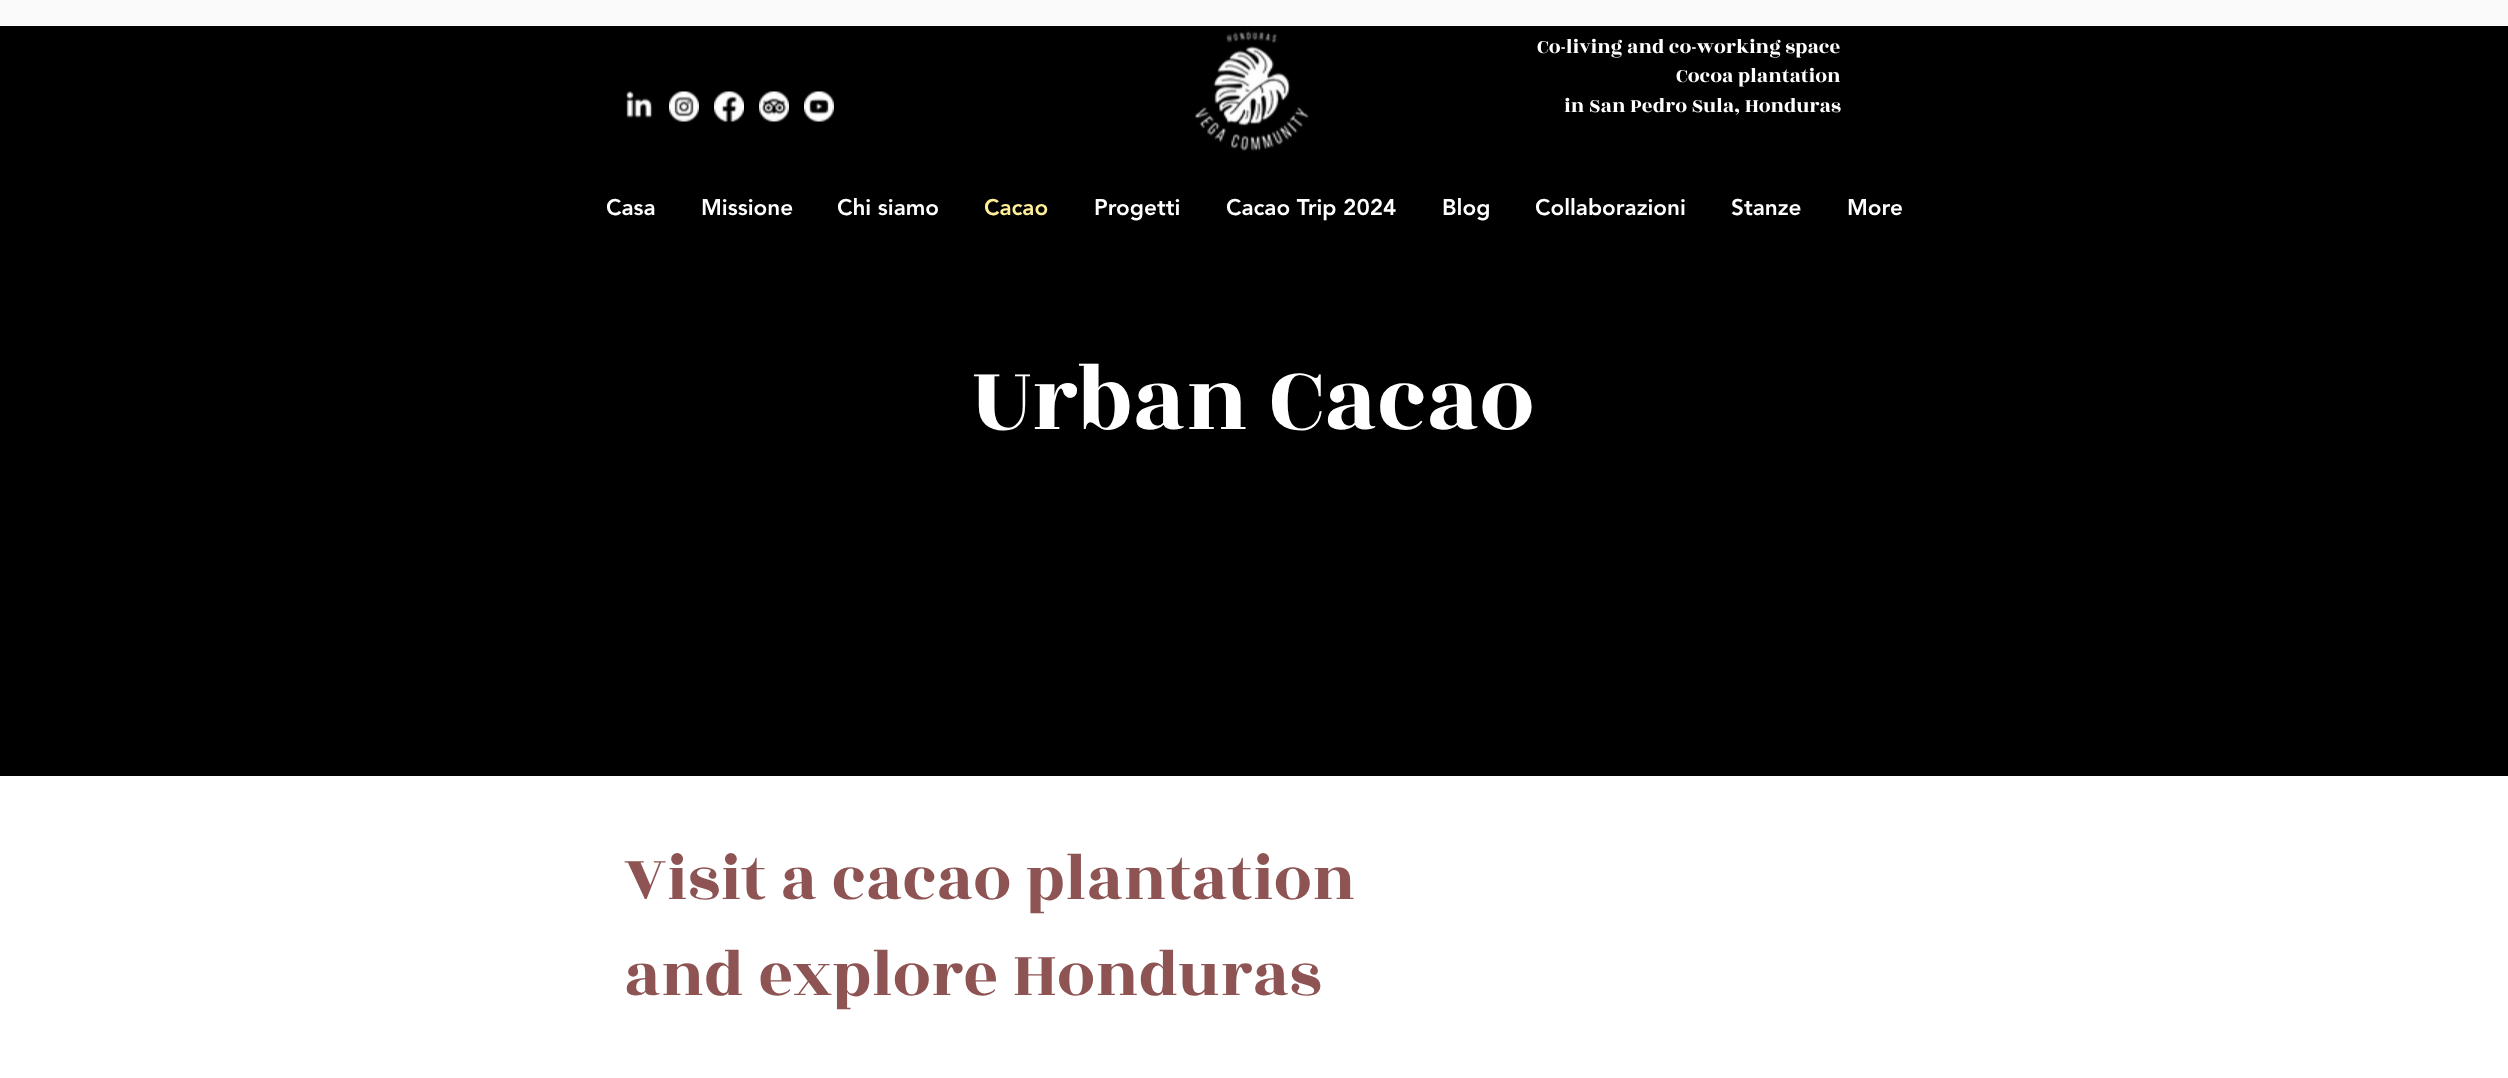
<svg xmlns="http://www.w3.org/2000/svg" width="2508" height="1078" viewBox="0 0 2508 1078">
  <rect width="100%" height="100%" fill="#fafafa"/>
  <rect x="0" y="26" width="2508" height="750" fill="#000000"/>
  <image x="626" y="91" width="27" height="27" href="img1.png"/>
  <image x="669" y="91" width="30" height="31" href="img2.png"/>
  <image x="714" y="91" width="30" height="31" href="img3.png"/>
  <image x="759" y="91" width="30" height="31" href="img4.png"/>
  <image x="804" y="91" width="30" height="31" href="img5.png"/>
  <image x="1195" y="31" width="114" height="120" href="img6.png"/>
  <text x="1537" y="53" font-family="Rozha One" font-size="21" fill="#ffffff">Co-living and co-working space</text>
  <text x="1676" y="82" font-family="Rozha One" font-size="21" fill="#ffffff">Cocoa plantation</text>
  <text x="1564" y="112" font-family="Rozha One" font-size="21" fill="#ffffff">in San Pedro Sula, Honduras</text>
  <text x="606" y="215" font-family="'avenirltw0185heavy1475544'" font-size="22.5" font-weight="900" fill="#ffffff">Casa</text>
  <text x="701" y="215" font-family="'avenirltw0185heavy1475544'" font-size="22.5" font-weight="900" fill="#ffffff">Missione</text>
  <text x="837" y="215" font-family="'avenirltw0185heavy1475544'" font-size="22.5" font-weight="900" fill="#ffffff">Chi siamo</text>
  <text x="984" y="215" font-family="'avenirltw0185heavy1475544'" font-size="22.5" font-weight="900" fill="#ffef98">Cacao</text>
  <text x="1094" y="215" font-family="'avenirltw0185heavy1475544'" font-size="22.5" font-weight="900" fill="#ffffff">Progetti</text>
  <text x="1226" y="215" font-family="'avenirltw0185heavy1475544'" font-size="22.5" font-weight="900" fill="#ffffff">Cacao Trip 2024</text>
  <text x="1442" y="215" font-family="'avenirltw0185heavy1475544'" font-size="22.5" font-weight="900" fill="#ffffff">Blog</text>
  <text x="1535" y="215" font-family="'avenirltw0185heavy1475544'" font-size="22.5" font-weight="900" fill="#ffffff">Collaborazioni</text>
  <text x="1731" y="215" font-family="'avenirltw0185heavy1475544'" font-size="22.5" font-weight="900" fill="#ffffff">Stanze</text>
  <text x="1847" y="215" font-family="'avenirltw0185heavy1475544'" font-size="22.5" font-weight="900" fill="#ffffff">More</text>
  <text x="972" y="429" font-family="Rozha One" font-size="97.5" fill="#ffffff">Urban Cacao</text>
  <rect x="0" y="776" width="2508" height="302" fill="#ffffff"/>
  <text x="624" y="899" font-family="Rozha One" font-size="67.5" fill="#8e5454">Visit a cacao plantation</text>
  <text x="624" y="995" font-family="Rozha One" font-size="67.5" fill="#8e5454">and explore Honduras</text>
</svg>
